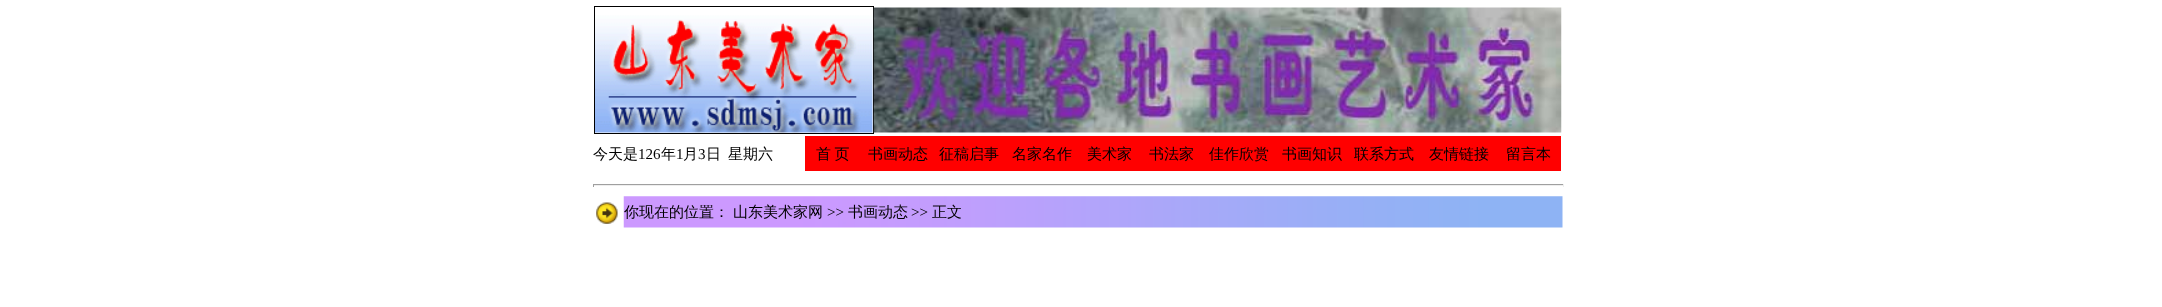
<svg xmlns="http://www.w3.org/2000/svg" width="2162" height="307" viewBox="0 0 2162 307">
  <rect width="100%" height="100%" fill="#ffffff"/>
  <rect x="594.5" y="6.5" width="279" height="127" fill="none" stroke="#000000"/>
  <image x="595" y="15" width="278" height="118" href="img1.png"/>
  <image x="873" y="7" width="689" height="126" href="img2.png"/>
  <text x="593" y="159" font-family="WenQuanYi Zen Hei" font-size="15" font-weight="500" fill="#000000">今天是</text>
  <text x="638" y="159" font-family="Liberation Serif" font-size="15" fill="#000000">126</text>
  <text x="661" y="159" font-family="WenQuanYi Zen Hei" font-size="15" font-weight="500" fill="#000000">年</text>
  <text x="676" y="159" font-family="Liberation Serif" font-size="15" fill="#000000">1</text>
  <text x="683" y="159" font-family="WenQuanYi Zen Hei" font-size="15" font-weight="500" fill="#000000">月</text>
  <text x="698" y="159" font-family="Liberation Serif" font-size="15" fill="#000000">3</text>
  <text x="706" y="159" font-family="WenQuanYi Zen Hei" font-size="15" font-weight="500" fill="#000000">日</text>
  <text x="728" y="159" font-family="WenQuanYi Zen Hei" font-size="15" font-weight="500" fill="#000000">星期六</text>
  <rect x="805" y="136" width="756" height="35" fill="#ff0000"/>
  <text x="816" y="159" word-spacing="-1" font-family="WenQuanYi Zen Hei" font-size="15" font-weight="500" fill="#000000">首 页</text>
  <text x="868" y="159" font-family="WenQuanYi Zen Hei" font-size="15" font-weight="500" fill="#000000">书画动态</text>
  <text x="939" y="159" font-family="WenQuanYi Zen Hei" font-size="15" font-weight="500" fill="#000000">征稿启事</text>
  <text x="1012" y="159" font-family="WenQuanYi Zen Hei" font-size="15" font-weight="500" fill="#000000">名家名作</text>
  <text x="1087" y="159" font-family="WenQuanYi Zen Hei" font-size="15" font-weight="500" fill="#000000">美术家</text>
  <text x="1149" y="159" font-family="WenQuanYi Zen Hei" font-size="15" font-weight="500" fill="#000000">书法家</text>
  <text x="1209" y="159" font-family="WenQuanYi Zen Hei" font-size="15" font-weight="500" fill="#000000">佳作欣赏</text>
  <text x="1282" y="159" font-family="WenQuanYi Zen Hei" font-size="15" font-weight="500" fill="#000000">书画知识</text>
  <text x="1354" y="159" font-family="WenQuanYi Zen Hei" font-size="15" font-weight="500" fill="#000000">联系方式</text>
  <text x="1429" y="159" font-family="WenQuanYi Zen Hei" font-size="15" font-weight="500" fill="#000000">友情链接</text>
  <text x="1506" y="159" font-family="WenQuanYi Zen Hei" font-size="15" font-weight="500" fill="#000000">留言本</text>
  <rect x="593" y="184" width="971" height="1" fill="#9f9f9f"/>
  <rect x="1563" y="184" width="1" height="3" fill="#eeeeee"/>
  <rect x="593" y="185" width="971" height="1" fill="#eeeeee"/>
  <rect x="593" y="184" width="1" height="3" fill="#9f9f9f"/>
  <image x="596" y="202" width="22" height="22" href="img3.png"/>
  <image x="623" y="196" width="940" height="32" href="img4.png"/>
  <text x="624" y="217" font-family="WenQuanYi Zen Hei" font-size="15" font-weight="500" fill="#000000">你现在的位置：</text>
  <text x="733" y="217" font-family="WenQuanYi Zen Hei" font-size="15" font-weight="500" fill="#000000">山东美术家网</text>
  <text x="827" y="217" font-family="Liberation Serif" font-size="15" fill="#000000">&gt;&gt;</text>
  <text x="848" y="217" font-family="WenQuanYi Zen Hei" font-size="15" font-weight="500" fill="#000000">书画动态</text>
  <text x="911" y="217" font-family="Liberation Serif" font-size="15" fill="#000000">&gt;&gt;</text>
  <text x="932" y="217" font-family="WenQuanYi Zen Hei" font-size="15" font-weight="500" fill="#000000">正文</text>
</svg>
